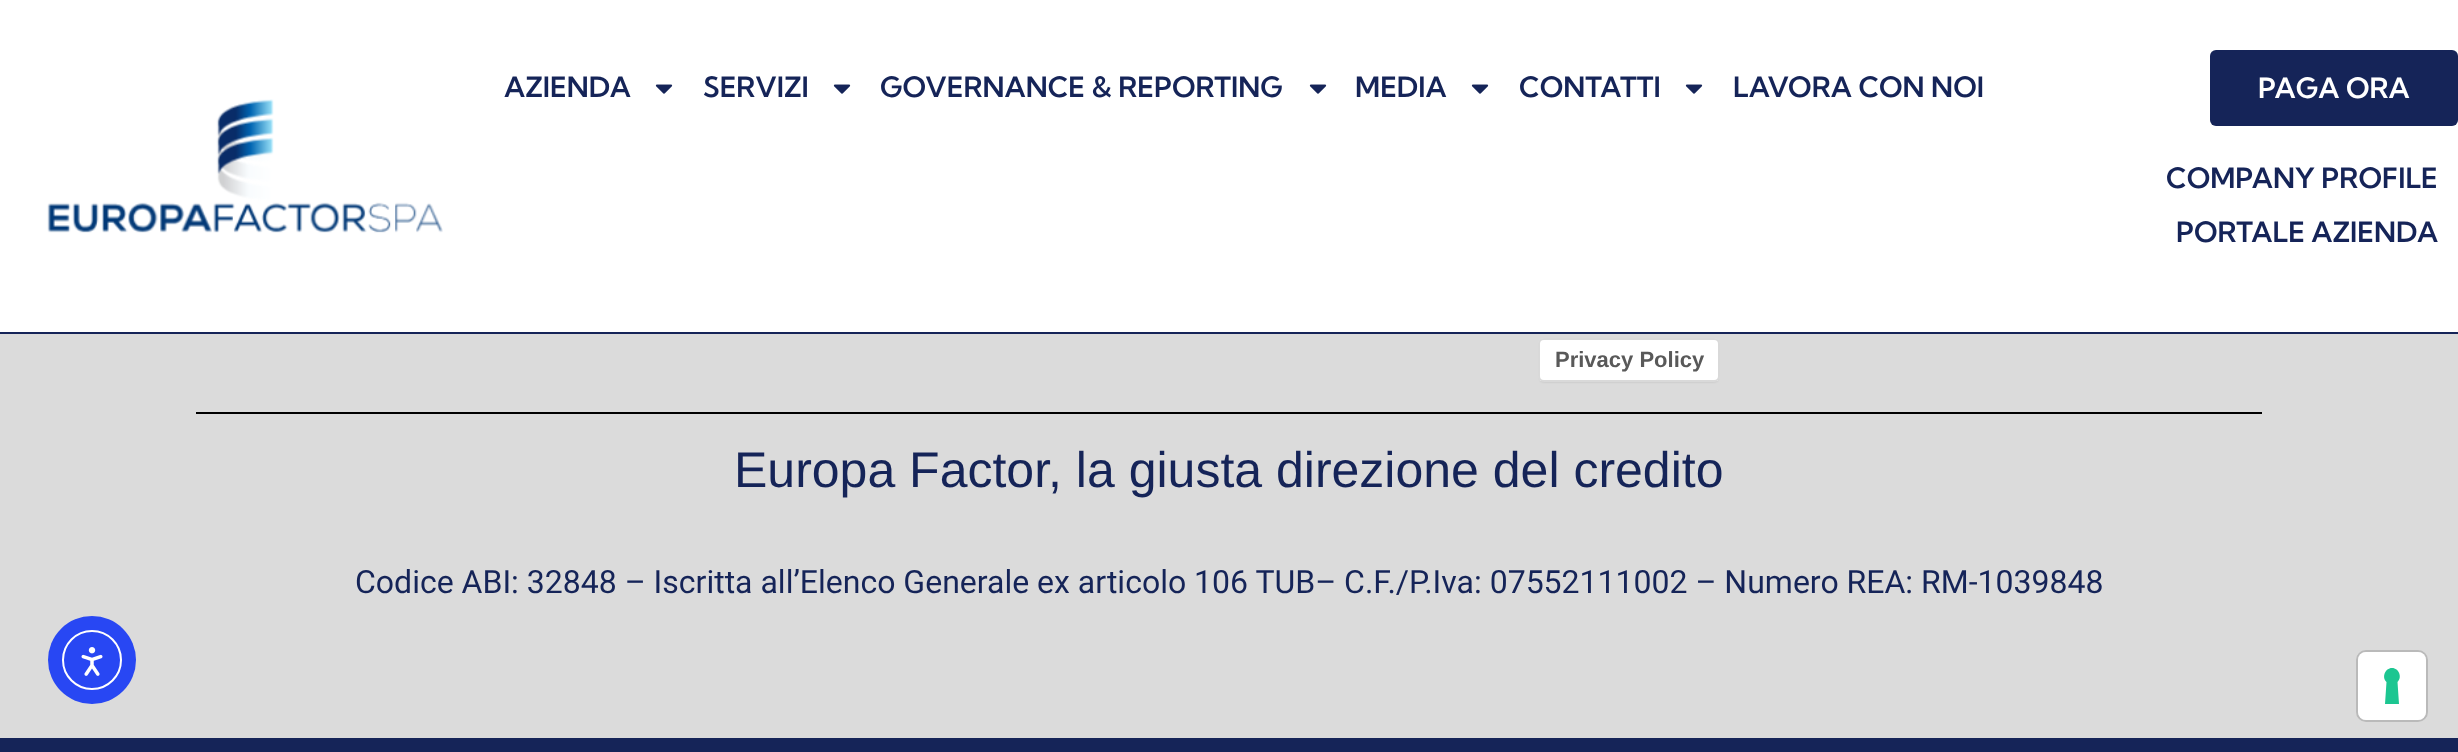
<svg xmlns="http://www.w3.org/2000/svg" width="2458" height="752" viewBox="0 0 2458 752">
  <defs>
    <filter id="blur1" x="-50%" y="-200%" width="200%" height="500%"><feGaussianBlur stdDeviation="1"/></filter>
  </defs>
  <rect width="100%" height="100%" fill="#dbdbdb"/>
  <rect x="0" y="0" width="2458" height="332" fill="#ffffff"/>
  <rect x="0" y="332" width="2458" height="2" fill="#152458"/>
  <image x="47" y="99" width="396" height="134" href="img1.png"/>
  <text x="504" y="97" font-family="Kumbh Sans" font-size="28" font-weight="600" fill="#152458">AZIENDA</text>
  <image x="655" y="84" width="18" height="10" href="img2.png"/>
  <text x="703" y="97" font-family="Kumbh Sans" font-size="28" font-weight="600" fill="#152458">SERVIZI</text>
  <image x="833" y="84" width="18" height="10" href="img2.png"/>
  <text x="880" y="97" font-family="Kumbh Sans" font-size="28" font-weight="600" fill="#152458">GOVERNANCE &amp; REPORTING</text>
  <image x="1309" y="84" width="18" height="10" href="img2.png"/>
  <text x="1355" y="97" font-family="Kumbh Sans" font-size="28" font-weight="600" fill="#152458">MEDIA</text>
  <image x="1471" y="84" width="18" height="10" href="img2.png"/>
  <text x="1519" y="97" font-family="Kumbh Sans" font-size="28" font-weight="600" fill="#152458">CONTATTI</text>
  <image x="1685" y="84" width="18" height="10" href="img2.png"/>
  <text x="1733" y="97" font-family="Kumbh Sans" font-size="28" font-weight="600" fill="#152458">LAVORA CON NOI</text>
  <rect x="2210" y="50" width="248" height="76" rx="6" fill="#152458"/>
  <text x="2258" y="98" font-family="Kumbh Sans" font-size="28" font-weight="600" fill="#ffffff">PAGA ORA</text>
  <text x="2166" y="188" font-family="Kumbh Sans" font-size="28" font-weight="600" fill="#152458">COMPANY PROFILE</text>
  <text x="2176" y="242" font-family="Kumbh Sans" font-size="28" font-weight="600" fill="#152458">PORTALE AZIENDA</text>
  <rect x="1540" y="342" width="178" height="40" rx="4" fill="#000000" fill-opacity="0.15" filter="url(#blur1)"/>
  <rect x="1538" y="338" width="182" height="44" rx="6" fill="#ffffff"/>
  <rect x="1539" y="339" width="180" height="42" rx="5" fill="none" stroke="#000000" stroke-opacity="0.15" stroke-width="2"/>
  <text x="1555" y="367" font-family="Liberation Sans" font-size="22" font-weight="bold" fill="#595959">Privacy Policy</text>
  <rect x="196" y="412" width="2066" height="2" fill="#000000"/>
  <text x="734" y="487" font-family="Liberation Sans" font-size="50" fill="#152458">Europa Factor, la giusta direzione del credito</text>
  <text x="355" y="593" font-family="Roboto" font-size="32" fill="#152458">Codice ABI: 32848 – Iscritta all’Elenco Generale ex articolo 106 TUB– C.F./P.Iva: 07552111002 – Numero REA: RM-1039848</text>
  <rect x="0" y="738" width="2458" height="14" fill="#152458"/>
  <circle cx="92" cy="660" r="44" fill="#2847f3"/>
  <circle cx="92" cy="660" r="29" fill="none" stroke="#ffffff" stroke-width="2"/>
  <image x="81" y="647" width="22" height="29" href="img3.png"/>
  <rect x="2357" y="651" width="70" height="70" rx="9" fill="none" stroke="#bababa" stroke-width="2"/>
  <rect x="2358" y="652" width="68" height="68" rx="8" fill="#ffffff"/>
  <path d="M2392 668C2399 668 2402.5 677.5 2397.5 682L2399 704H2385L2386.5 682C2381.5 677.5 2385 668 2392 668Z" fill="#1cc691" fill-rule="evenodd"/>
</svg>
